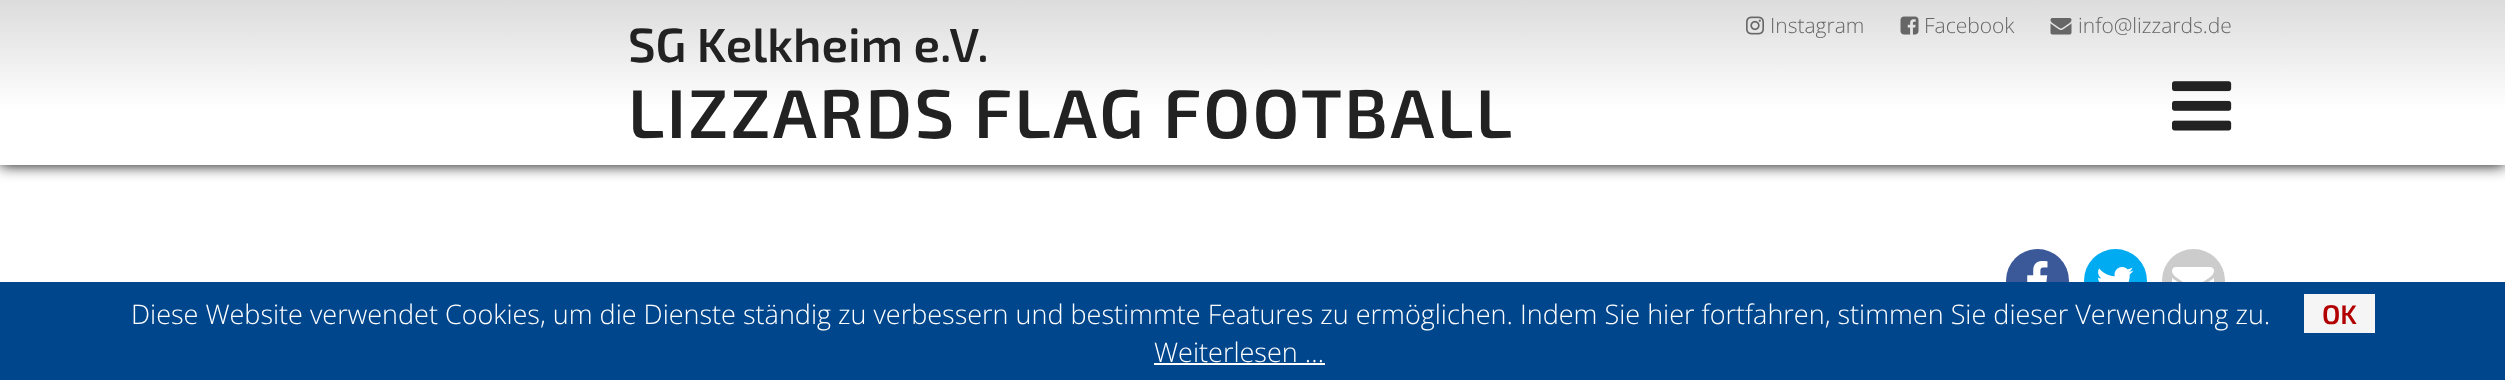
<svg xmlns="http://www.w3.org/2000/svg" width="2505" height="380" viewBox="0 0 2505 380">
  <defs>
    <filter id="blur1" x="-50%" y="-200%" width="200%" height="500%"><feGaussianBlur stdDeviation="7.5"/></filter>
    <linearGradient id="g1" gradientUnits="userSpaceOnUse" x1="1253" y1="0" x2="1253" y2="165"><stop offset="0" stop-color="#dcdcdc"/><stop offset="0.67" stop-color="#ffffff"/></linearGradient>
  </defs>
  <rect width="100%" height="100%" fill="#ffffff"/>
  <rect x="0" y="0" width="2505" height="165" fill="#000000" filter="url(#blur1)"/>
  <rect x="0" y="0" width="2505" height="165" fill="url(#g1)"/>
  <text x="628" y="62" font-family="'Exo 2'" font-size="48" font-weight="600" fill="#222222">SG Kelkheim e.V.</text>
  <image x="1746" y="16" width="18" height="19" href="img1.png"/>
  <text x="1770" y="33" font-family="Open Sans" font-size="21" font-weight="300" fill="#666666">Instagram</text>
  <image x="1900" y="16" width="19" height="19" href="img2.png"/>
  <text x="1924" y="33" font-family="Open Sans" font-size="21" font-weight="300" fill="#666666">Facebook</text>
  <image x="2050" y="18" width="22" height="17" href="img3.png"/>
  <text x="2078" y="33" font-family="Open Sans" font-size="21" font-weight="300" fill="#666666">info@lizzards.de</text>
  <text x="628" y="138" font-family="'Exo 2'" font-size="69" font-weight="600" letter-spacing="2.4" fill="#222222">LIZZARDS FLAG FOOTBALL</text>
  <image x="2172" y="81" width="60" height="50" href="img4.png"/>
  <circle cx="2037.5" cy="280.5" r="31.5" fill="#3b5998"/>
  <image x="2027" y="261" width="21" height="21" href="img5.png"/>
  <circle cx="2115.5" cy="280.5" r="31.5" fill="#00abf1"/>
  <image x="2098" y="267" width="36" height="15" href="img6.png"/>
  <circle cx="2193.5" cy="280.5" r="31.5" fill="#cccccc"/>
  <image x="2172" y="267" width="42" height="15" href="img7.png"/>
  <rect x="0" y="282" width="2505" height="98" fill="#00468c"/>
  <text x="131" y="324" font-family="Open Sans" font-size="27" font-weight="300" fill="#ffffff">Diese Website verwendet Cookies, um die Dienste ständig zu verbessern und bestimmte Features zu ermöglichen. Indem Sie hier fortfahren, stimmen Sie dieser Verwendung zu.</text>
  <rect x="2304" y="294" width="71" height="39" fill="#f5f5f5"/>
  <text x="2322" y="324" font-family="'Exo 2'" font-size="27" font-weight="600" fill="#b20000">OK</text>
  <text x="1154" y="362" font-family="Open Sans" font-size="27" font-weight="300" fill="#ffffff">Weiterlesen …</text>
  <rect x="1154" y="363" width="171" height="2" fill="#ffffff"/>
</svg>
